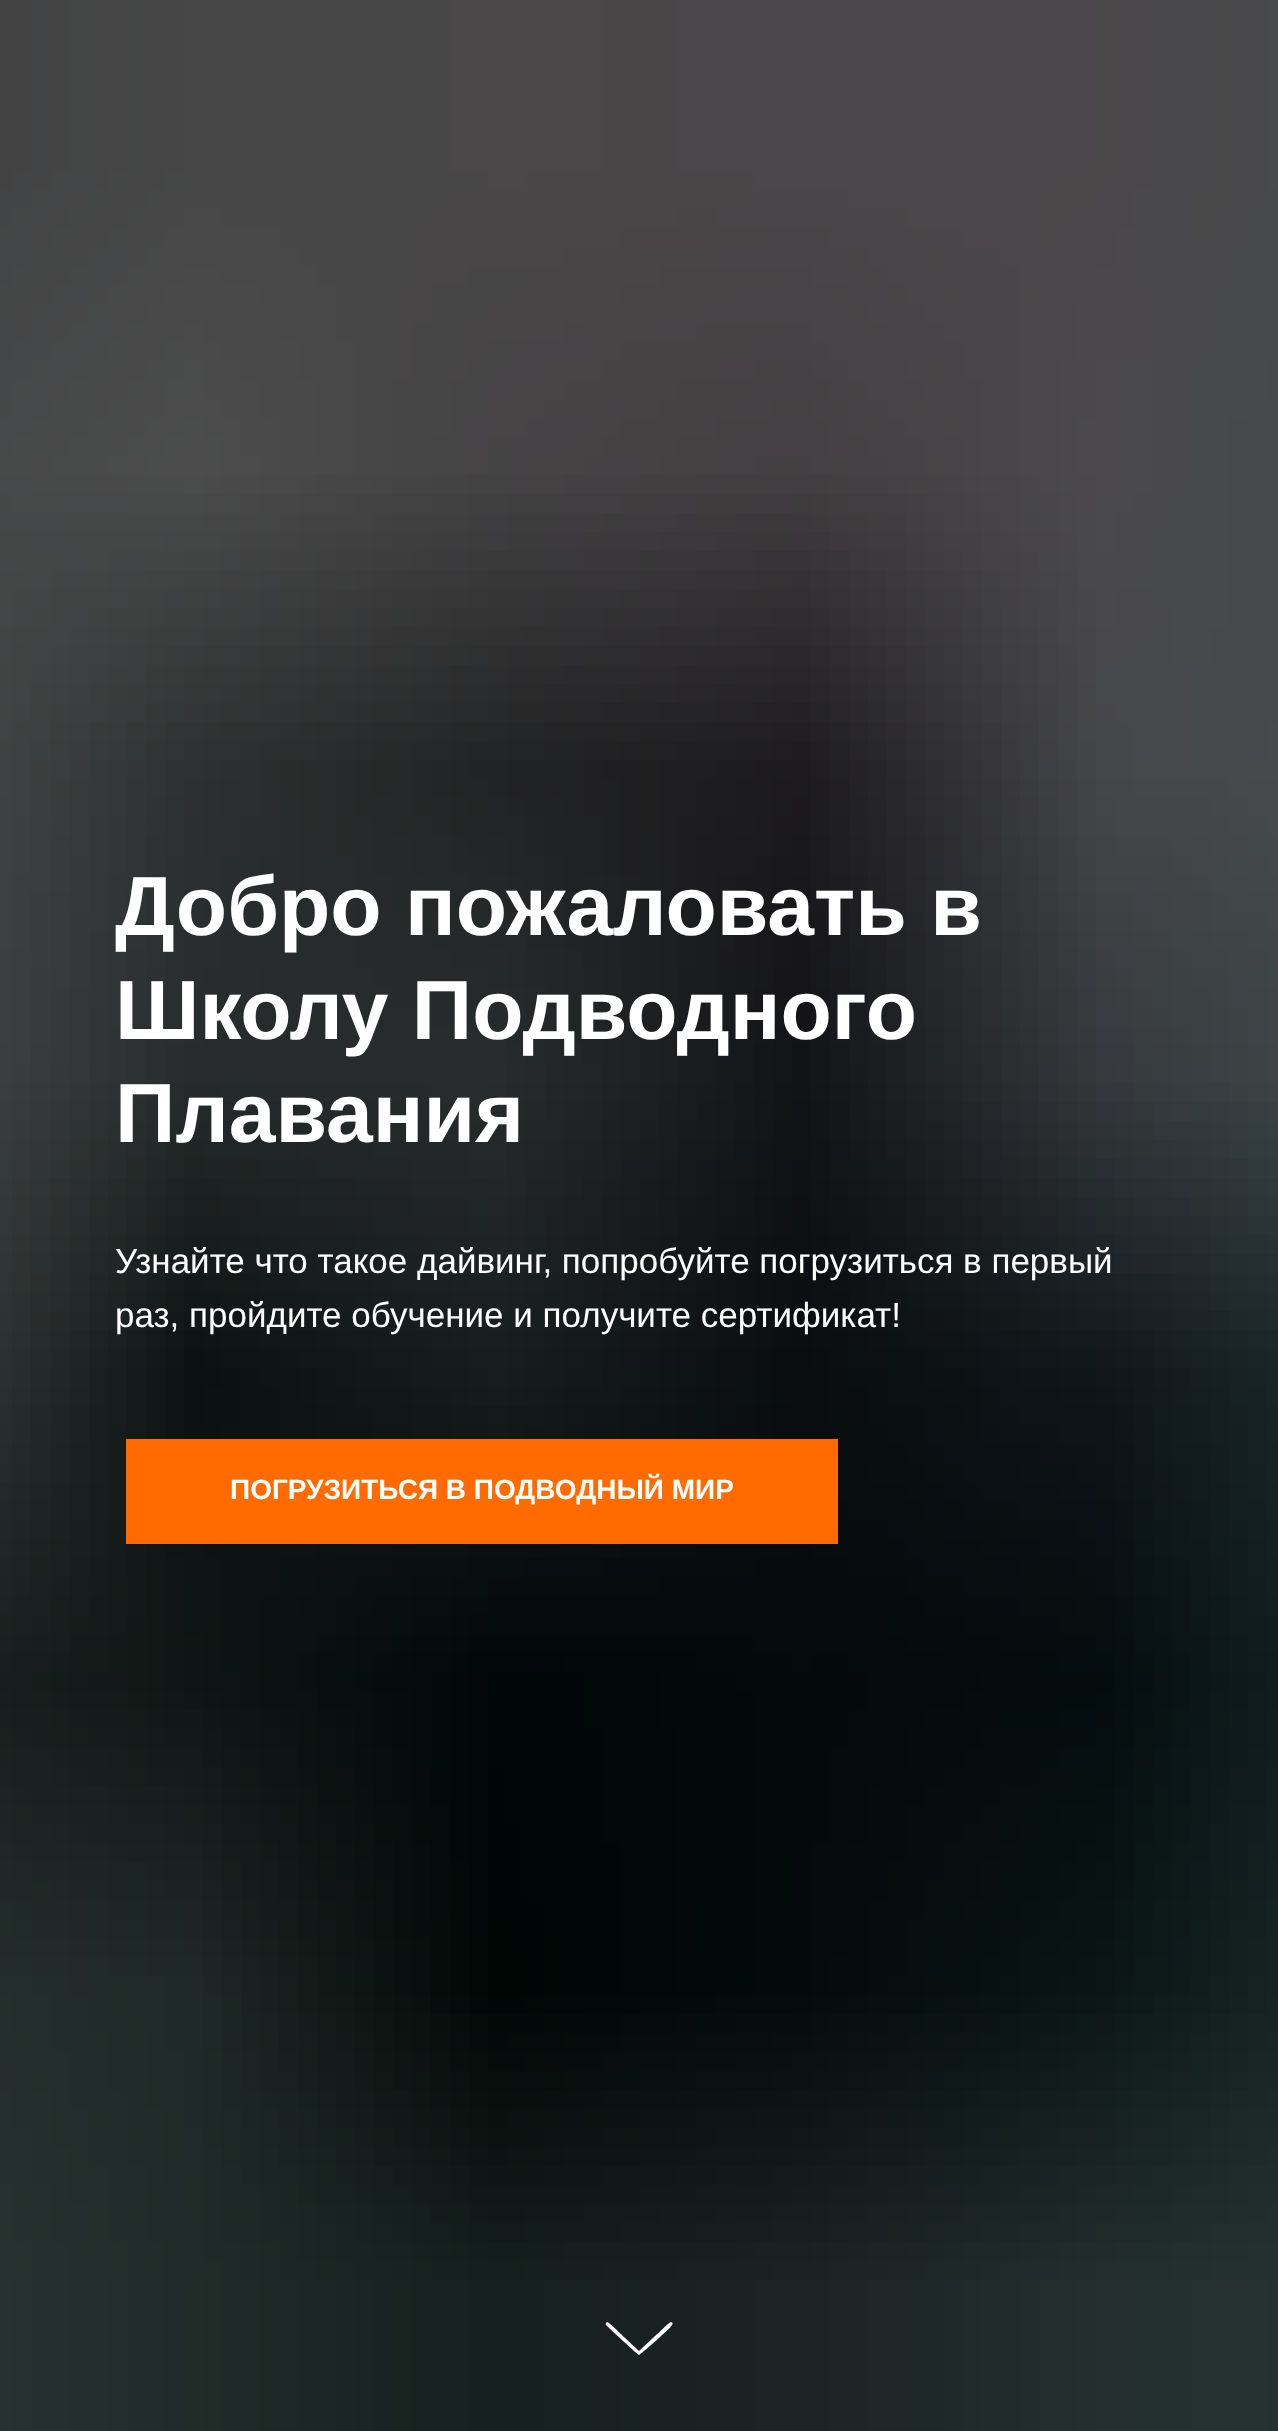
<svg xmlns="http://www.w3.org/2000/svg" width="1278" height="2431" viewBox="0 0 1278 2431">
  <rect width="100%" height="100%" fill="#ffffff"/>
  <image x="0" y="0" width="1278" height="2431" href="img1.png"/>
  <text x="115" y="935" font-family="Liberation Sans" font-size="84" font-weight="bold" fill="#ffffff">Добро пожаловать в</text>
  <text x="115" y="1039" font-family="Liberation Sans" font-size="84" font-weight="bold" fill="#ffffff">Школу Подводного</text>
  <text x="115" y="1142" font-family="Liberation Sans" font-size="84" font-weight="bold" fill="#ffffff">Плавания</text>
  <text x="115" y="1273" font-family="Liberation Sans" font-size="35" fill="#ffffff">Узнайте что такое дайвинг, попробуйте погрузиться в первый</text>
  <text x="115" y="1327" font-family="Liberation Sans" font-size="35" fill="#ffffff">раз, пройдите обучение и получите сертификат!</text>
  <rect x="126" y="1439" width="712" height="105" fill="#ff6b00"/>
  <text x="230" y="1499" font-family="Liberation Sans" font-size="28" font-weight="bold" fill="#ffffff">ПОГРУЗИТЬСЯ В ПОДВОДНЫЙ МИР</text>
  <path d="M639 2355C638 2355 610 2329 606 2325C605 2324 606 2323 607 2322C609 2322 622 2335 624 2337L639 2351L654 2337C657 2335 669 2322 671 2322C673 2323 673 2324 672 2325C671 2328 640 2355 639 2355Z" fill="#ffffff"/>
</svg>
